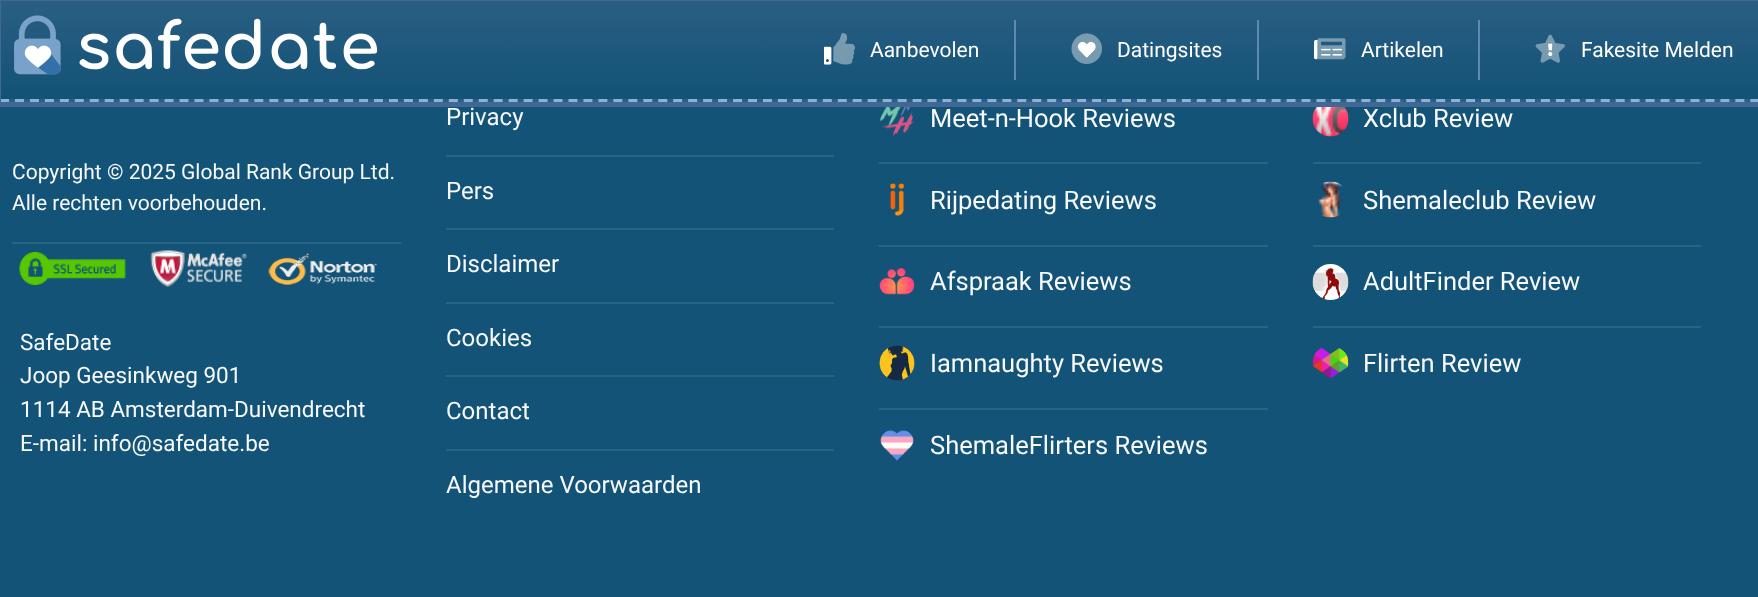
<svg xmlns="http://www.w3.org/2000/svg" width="1758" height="597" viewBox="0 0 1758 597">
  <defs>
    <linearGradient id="g1" gradientUnits="userSpaceOnUse" x1="879" y1="0" x2="879" y2="99"><stop offset="0" stop-color="#2a5f83"/><stop offset="1" stop-color="#125276"/></linearGradient>
    <linearGradient id="g2" gradientUnits="userSpaceOnUse" x1="879" y1="99" x2="879" y2="198"><stop offset="0" stop-color="#2a5f83"/><stop offset="1" stop-color="#125276"/></linearGradient>
  </defs>
  <rect width="100%" height="100%" fill="#125377"/>
  <rect x="1" y="1" width="1757" height="88" fill="url(#g1)"/>
  <rect x="9" y="99" width="1749" height="3" fill="url(#g2)"/>
  <path d="M0 100.5H1758" fill="none" stroke="#8db1d3" stroke-width="3" stroke-dasharray="9 5.96"/>
  <rect x="-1.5" y="-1.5" width="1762" height="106" fill="none" stroke="#3f6994" stroke-width="5"/>
  <image x="14" y="15" width="47" height="60" href="img1.png"/>
  <image x="79" y="18" width="299" height="52" href="img2.png"/>
  <rect x="1014" y="20" width="2" height="60" fill="#5f8aad"/>
  <image x="824" y="33" width="31" height="32" href="img3.png"/>
  <text x="870" y="57" font-family="Roboto" font-size="21" fill="#ffffff">Aanbevolen</text>
  <rect x="1257" y="20" width="2" height="60" fill="#5f8aad"/>
  <image x="1071" y="33" width="31" height="31" href="img4.png"/>
  <text x="1117" y="57" font-family="Roboto" font-size="21" fill="#ffffff">Datingsites</text>
  <rect x="1478" y="20" width="2" height="60" fill="#5f8aad"/>
  <image x="1314" y="38" width="32" height="22" href="img5.png"/>
  <text x="1361" y="57" font-family="Roboto" font-size="21" fill="#ffffff">Artikelen</text>
  <image x="1535" y="34" width="30" height="29" href="img6.png"/>
  <text x="1581" y="57" font-family="Roboto" font-size="21" fill="#ffffff">Fakesite Melden</text>
  <text x="12" y="179" font-family="Roboto" font-size="21" fill="#f8f9fa">Copyright © 2025 Global Rank Group Ltd.</text>
  <text x="12" y="210" font-family="Roboto" font-size="21" fill="#f8f9fa">Alle rechten voorbehouden.</text>
  <rect x="12" y="242" width="389" height="2" fill="#2a6485"/>
  <image x="19" y="252" width="107" height="33" href="img7.png"/>
  <image x="150" y="250" width="97" height="37" href="img8.png"/>
  <image x="268" y="253" width="109" height="32" href="img9.png"/>
  <text x="20" y="350" font-family="Roboto" font-size="22.5" fill="#f8f9fa">SafeDate</text>
  <text x="20" y="383" font-family="Roboto" font-size="22.5" fill="#f8f9fa">Joop Geesinkweg 901</text>
  <text x="20" y="417" font-family="Roboto" font-size="22.5" fill="#f8f9fa">1114 AB Amsterdam-Duivendrecht</text>
  <text x="20" y="451" font-family="Roboto" font-size="22.5" fill="#f8f9fa">E-mail: info@safedate.be</text>
  <rect x="446" y="155" width="388" height="2" fill="#2a6485"/>
  <text x="446" y="125" font-family="Roboto" font-size="24" fill="#f8f9fa">Privacy</text>
  <rect x="446" y="228" width="388" height="2" fill="#2a6485"/>
  <text x="446" y="199" font-family="Roboto" font-size="24" fill="#f8f9fa">Pers</text>
  <rect x="446" y="302" width="388" height="2" fill="#2a6485"/>
  <text x="446" y="272" font-family="Roboto" font-size="24" fill="#f8f9fa">Disclaimer</text>
  <rect x="446" y="375" width="388" height="2" fill="#2a6485"/>
  <text x="446" y="346" font-family="Roboto" font-size="24" fill="#f8f9fa">Cookies</text>
  <rect x="446" y="449" width="388" height="2" fill="#2a6485"/>
  <text x="446" y="419" font-family="Roboto" font-size="24" fill="#f8f9fa">Contact</text>
  <text x="446" y="493" font-family="Roboto" font-size="24" fill="#f8f9fa">Algemene Voorwaarden</text>
  <rect x="879" y="162" width="389" height="2" fill="#2a6485"/>
  <image x="879" y="107" width="36" height="29" href="img10.png"/>
  <text x="930" y="127" font-family="Roboto" font-size="25.5" fill="#f8f9fa">Meet-n-Hook Reviews</text>
  <rect x="879" y="245" width="389" height="2" fill="#2a6485"/>
  <image x="890" y="183" width="15" height="33" href="img11.png"/>
  <text x="930" y="209" font-family="Roboto" font-size="25.5" fill="#f8f9fa">Rijpedating Reviews</text>
  <rect x="879" y="326" width="389" height="2" fill="#2a6485"/>
  <image x="879" y="268" width="36" height="27" href="img12.png"/>
  <text x="930" y="290" font-family="Roboto" font-size="25.5" fill="#f8f9fa">Afspraak Reviews</text>
  <rect x="879" y="408" width="389" height="2" fill="#2a6485"/>
  <image x="879" y="345" width="36" height="36" href="img13.png"/>
  <text x="930" y="372" font-family="Roboto" font-size="25.5" fill="#f8f9fa">Iamnaughty Reviews</text>
  <image x="880" y="430" width="34" height="31" href="img14.png"/>
  <text x="930" y="454" font-family="Roboto" font-size="25.5" fill="#f8f9fa">ShemaleFlirters Reviews</text>
  <rect x="1313" y="162" width="388" height="2" fill="#2a6485"/>
  <image x="1312" y="107" width="37" height="30" href="img15.png"/>
  <text x="1363" y="127" font-family="Roboto" font-size="25.5" fill="#f8f9fa">Xclub Review</text>
  <rect x="1313" y="245" width="388" height="2" fill="#2a6485"/>
  <image x="1318" y="181" width="25" height="37" href="img16.png"/>
  <text x="1363" y="209" font-family="Roboto" font-size="25.5" fill="#f8f9fa">Shemaleclub Review</text>
  <rect x="1313" y="326" width="388" height="2" fill="#2a6485"/>
  <image x="1312" y="264" width="37" height="36" href="img17.png"/>
  <text x="1363" y="290" font-family="Roboto" font-size="25.5" fill="#f8f9fa">AdultFinder Review</text>
  <image x="1312" y="347" width="37" height="32" href="img18.png"/>
  <text x="1363" y="372" font-family="Roboto" font-size="25.5" fill="#f8f9fa">Flirten Review</text>
</svg>
